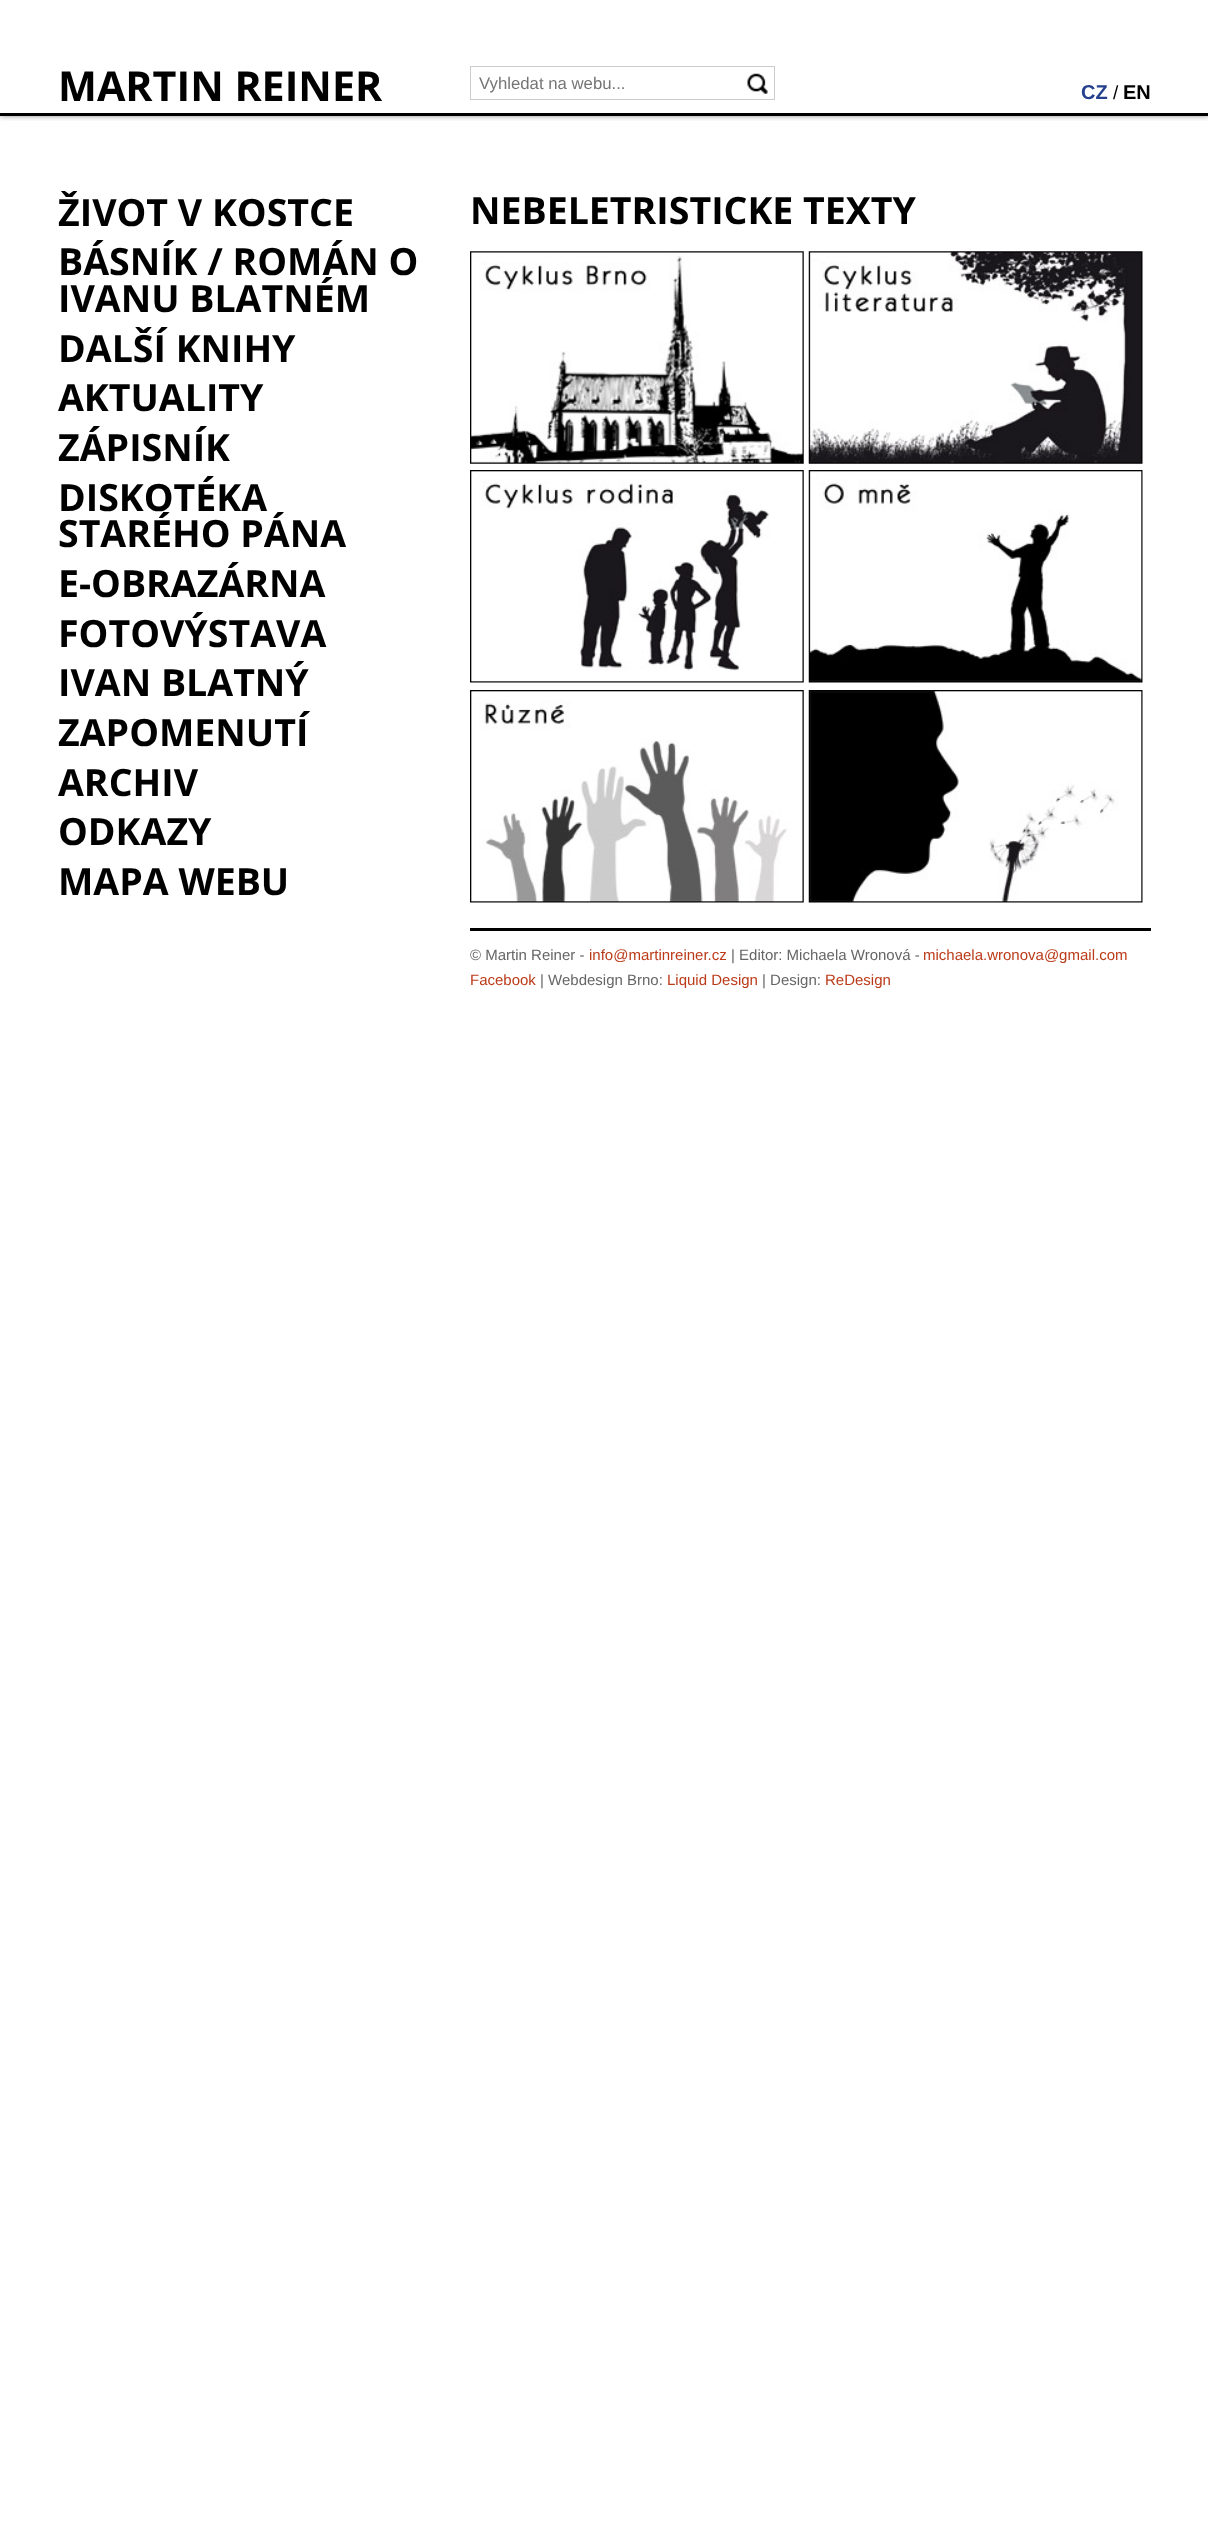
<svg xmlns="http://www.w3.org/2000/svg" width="1208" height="2533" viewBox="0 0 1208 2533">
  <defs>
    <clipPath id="clip1"><rect x="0" y="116" width="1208" height="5"/></clipPath>
    <filter id="blur1" x="-50%" y="-200%" width="200%" height="500%"><feGaussianBlur stdDeviation="3"/></filter>
  </defs>
  <rect width="100%" height="100%" fill="#ffffff"/>
  <g clip-path="url(#clip1)">
    <rect x="0" y="0" width="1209" height="115" fill="#666666" filter="url(#blur1)"/>
  </g>
  <rect x="0" y="113" width="1208" height="3" fill="#000000"/>
  <text x="58" y="101" font-family="Open Sans" font-size="41.25" font-weight="bold" fill="#000000">MARTIN REINER</text>
  <image x="747" y="73" width="21" height="21" href="img1.png"/>
  <rect x="470.5" y="66.5" width="304" height="33" fill="none" stroke="#cccccc"/>
  <text x="479" y="89" font-family="Liberation Sans" font-size="16.75" fill="#757575">Vyhledat na webu...</text>
  <text x="1081" y="99" font-family="Liberation Sans" font-size="20" font-weight="bold" fill="#26408d">CZ</text>
  <text x="1113" y="99" font-family="Liberation Sans" font-size="19" fill="#000000">/</text>
  <text x="1123" y="99" font-family="Liberation Sans" font-size="20" font-weight="bold" fill="#000000">EN</text>
  <text x="58" y="226" font-family="Open Sans" font-size="37.5" font-weight="bold" fill="#000000">ŽIVOT V KOSTCE</text>
  <text x="58" y="275" font-family="Open Sans" font-size="37.5" font-weight="bold" fill="#000000">BÁSNÍK / ROMÁN O</text>
  <text x="58" y="312" font-family="Open Sans" font-size="37.5" font-weight="bold" fill="#000000">IVANU BLATNÉM</text>
  <text x="58" y="362" font-family="Open Sans" font-size="37.5" font-weight="bold" fill="#000000">DALŠÍ KNIHY</text>
  <text x="58" y="411" font-family="Open Sans" font-size="37.5" font-weight="bold" fill="#000000">AKTUALITY</text>
  <text x="58" y="461" font-family="Open Sans" font-size="37.5" font-weight="bold" fill="#000000">ZÁPISNÍK</text>
  <text x="58" y="511" font-family="Open Sans" font-size="37.5" font-weight="bold" fill="#000000">DISKOTÉKA</text>
  <text x="58" y="547" font-family="Open Sans" font-size="37.5" font-weight="bold" fill="#000000">STARÉHO PÁNA</text>
  <text x="58" y="597" font-family="Open Sans" font-size="37.5" font-weight="bold" fill="#000000">E-OBRAZÁRNA</text>
  <text x="58" y="647" font-family="Open Sans" font-size="37.5" font-weight="bold" fill="#000000">FOTOVÝSTAVA</text>
  <text x="58" y="696" font-family="Open Sans" font-size="37.5" font-weight="bold" fill="#000000">IVAN BLATNÝ</text>
  <text x="58" y="746" font-family="Open Sans" font-size="37.5" font-weight="bold" fill="#000000">ZAPOMENUTÍ</text>
  <text x="58" y="796" font-family="Open Sans" font-size="37.5" font-weight="bold" fill="#000000">ARCHIV</text>
  <text x="58" y="845" font-family="Open Sans" font-size="37.5" font-weight="bold" fill="#000000">ODKAZY</text>
  <text x="58" y="895" font-family="Open Sans" font-size="37.5" font-weight="bold" fill="#000000">MAPA WEBU</text>
  <rect x="470" y="928" width="681" height="3" fill="#000000"/>
  <text x="470" y="224" font-family="Open Sans" font-size="37.5" font-weight="bold" fill="#000000">NEBELETRISTICKE TEXTY</text>
  <image x="470" y="251" width="334" height="213" href="img2.png"/>
  <image x="808" y="251" width="335" height="213" href="img3.png"/>
  <image x="470" y="470" width="334" height="213" href="img4.png"/>
  <image x="808" y="470" width="335" height="213" href="img5.png"/>
  <image x="470" y="690" width="334" height="213" href="img6.png"/>
  <image x="808" y="690" width="335" height="213" href="img7.png"/>
  <text x="470" y="960" font-family="Liberation Sans" font-size="15" fill="#666666">© Martin Reiner -</text>
  <text x="589" y="960" font-family="Liberation Sans" font-size="15" fill="#bb3b19">info@martinreiner.cz</text>
  <text x="731" y="960" font-family="Liberation Sans" font-size="15" fill="#666666">| Editor: Michaela Wronová -</text>
  <text x="923" y="960" font-family="Liberation Sans" font-size="15" fill="#bb3b19">michaela.wronova@gmail.com</text>
  <text x="470" y="985" font-family="Liberation Sans" font-size="15" fill="#bb3b19">Facebook</text>
  <text x="540" y="985" font-family="Liberation Sans" font-size="15" fill="#666666">| Webdesign Brno:</text>
  <text x="667" y="985" font-family="Liberation Sans" font-size="15" fill="#bb3b19">Liquid Design</text>
  <text x="762" y="985" font-family="Liberation Sans" font-size="15" fill="#666666">| Design:</text>
  <text x="825" y="985" font-family="Liberation Sans" font-size="15" fill="#bb3b19">ReDesign</text>
</svg>
